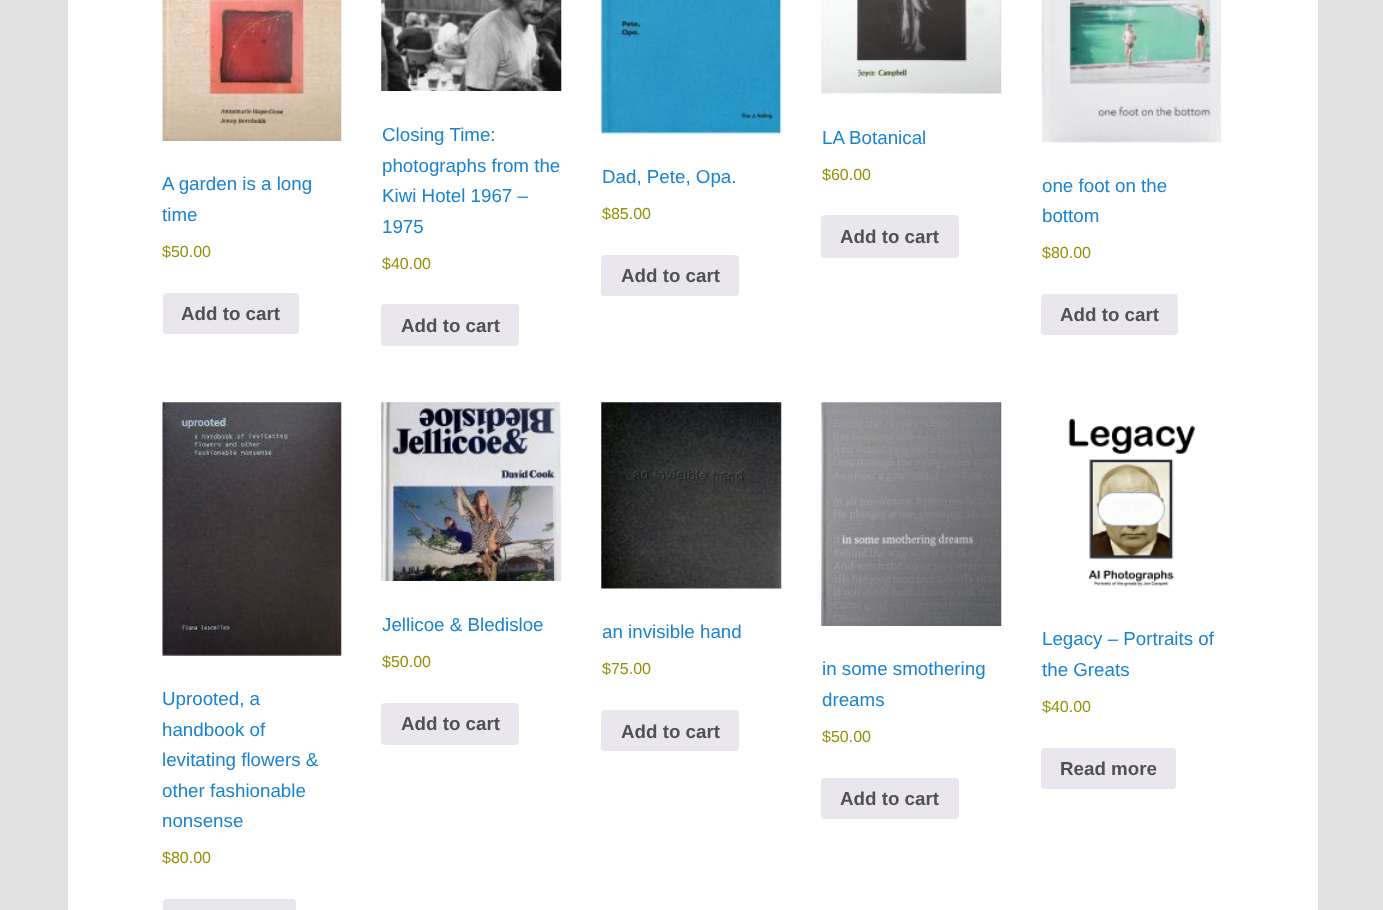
<svg xmlns="http://www.w3.org/2000/svg" width="1383" height="910" viewBox="0 0 1383 910">
  <rect width="100%" height="100%" fill="#e2e2e2"/>
  <rect x="68" y="0" width="1250" height="910" fill="#ffffff"/>
  <image x="162" y="0" width="180" height="141" href="img1.png"/>
  <text x="162" y="190" font-family="Liberation Sans" font-size="18.75" fill="#1982d1">A garden is a long</text>
  <text x="162" y="221" font-family="Liberation Sans" font-size="18.75" fill="#1982d1">time</text>
  <text x="162" y="257" font-family="Liberation Sans" font-size="16" fill="#958e09">$50.00</text>
  <rect x="163" y="293" width="136" height="41" rx="4" fill="#e9e6ed"/>
  <text x="181" y="320" font-family="Liberation Sans" font-size="18.75" font-weight="bold" fill="#515151">Add to cart</text>
  <image x="381" y="0" width="181" height="91" href="img2.png"/>
  <text x="382" y="141" font-family="Liberation Sans" font-size="18.75" fill="#1982d1">Closing Time:</text>
  <text x="382" y="172" font-family="Liberation Sans" font-size="18.75" fill="#1982d1">photographs from the</text>
  <text x="382" y="202" font-family="Liberation Sans" font-size="18.75" fill="#1982d1">Kiwi Hotel 1967 –</text>
  <text x="382" y="233" font-family="Liberation Sans" font-size="18.75" fill="#1982d1">1975</text>
  <text x="382" y="269" font-family="Liberation Sans" font-size="16" fill="#958e09">$40.00</text>
  <rect x="381" y="304" width="138" height="42" rx="4" fill="#e9e6ed"/>
  <text x="401" y="332" font-family="Liberation Sans" font-size="18.75" font-weight="bold" fill="#515151">Add to cart</text>
  <image x="601" y="0" width="181" height="134" href="img3.png"/>
  <text x="602" y="183" font-family="Liberation Sans" font-size="18.75" fill="#1982d1">Dad, Pete, Opa.</text>
  <text x="602" y="219" font-family="Liberation Sans" font-size="16" fill="#958e09">$85.00</text>
  <rect x="601" y="255" width="138" height="41" rx="4" fill="#e9e6ed"/>
  <text x="621" y="282" font-family="Liberation Sans" font-size="18.75" font-weight="bold" fill="#515151">Add to cart</text>
  <image x="821" y="0" width="181" height="94" href="img4.png"/>
  <text x="822" y="144" font-family="Liberation Sans" font-size="18.75" fill="#1982d1">LA Botanical</text>
  <text x="822" y="180" font-family="Liberation Sans" font-size="16" fill="#958e09">$60.00</text>
  <rect x="821" y="215" width="138" height="43" rx="4" fill="#e9e6ed"/>
  <text x="840" y="243" font-family="Liberation Sans" font-size="18.75" font-weight="bold" fill="#515151">Add to cart</text>
  <image x="1041" y="0" width="181" height="143" href="img5.png"/>
  <text x="1042" y="192" font-family="Liberation Sans" font-size="18.75" fill="#1982d1">one foot on the</text>
  <text x="1042" y="222" font-family="Liberation Sans" font-size="18.75" fill="#1982d1">bottom</text>
  <text x="1042" y="258" font-family="Liberation Sans" font-size="16" fill="#958e09">$80.00</text>
  <rect x="1041" y="294" width="137" height="41" rx="4" fill="#e9e6ed"/>
  <text x="1060" y="321" font-family="Liberation Sans" font-size="18.75" font-weight="bold" fill="#515151">Add to cart</text>
  <image x="162" y="402" width="180" height="254" href="img6.png"/>
  <text x="162" y="705" font-family="Liberation Sans" font-size="18.75" fill="#1982d1">Uprooted, a</text>
  <text x="162" y="736" font-family="Liberation Sans" font-size="18.75" fill="#1982d1">handbook of</text>
  <text x="162" y="766" font-family="Liberation Sans" font-size="18.75" fill="#1982d1">levitating flowers &amp;</text>
  <text x="162" y="797" font-family="Liberation Sans" font-size="18.75" fill="#1982d1">other fashionable</text>
  <text x="162" y="827" font-family="Liberation Sans" font-size="18.75" fill="#1982d1">nonsense</text>
  <text x="162" y="863" font-family="Liberation Sans" font-size="16" fill="#958e09">$80.00</text>
  <rect x="163" y="899" width="133" height="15" rx="4" fill="#e9e6ed"/>
  <image x="381" y="402" width="181" height="179" href="img7.png"/>
  <text x="382" y="631" font-family="Liberation Sans" font-size="18.75" fill="#1982d1">Jellicoe &amp; Bledisloe</text>
  <text x="382" y="667" font-family="Liberation Sans" font-size="16" fill="#958e09">$50.00</text>
  <rect x="381" y="703" width="138" height="42" rx="4" fill="#e9e6ed"/>
  <text x="401" y="730" font-family="Liberation Sans" font-size="18.75" font-weight="bold" fill="#515151">Add to cart</text>
  <image x="601" y="402" width="181" height="187" href="img8.png"/>
  <text x="602" y="638" font-family="Liberation Sans" font-size="18.75" fill="#1982d1">an invisible hand</text>
  <text x="602" y="674" font-family="Liberation Sans" font-size="16" fill="#958e09">$75.00</text>
  <rect x="601" y="710" width="138" height="41" rx="4" fill="#e9e6ed"/>
  <text x="621" y="738" font-family="Liberation Sans" font-size="18.75" font-weight="bold" fill="#515151">Add to cart</text>
  <image x="821" y="402" width="181" height="224" href="img9.png"/>
  <text x="822" y="675" font-family="Liberation Sans" font-size="18.75" fill="#1982d1">in some smothering</text>
  <text x="822" y="706" font-family="Liberation Sans" font-size="18.75" fill="#1982d1">dreams</text>
  <text x="822" y="742" font-family="Liberation Sans" font-size="16" fill="#958e09">$50.00</text>
  <rect x="821" y="778" width="138" height="41" rx="4" fill="#e9e6ed"/>
  <text x="840" y="805" font-family="Liberation Sans" font-size="18.75" font-weight="bold" fill="#515151">Add to cart</text>
  <image x="1068" y="418" width="127" height="169" href="img10.png"/>
  <text x="1042" y="645" font-family="Liberation Sans" font-size="18.75" fill="#1982d1">Legacy – Portraits of</text>
  <text x="1042" y="676" font-family="Liberation Sans" font-size="18.75" fill="#1982d1">the Greats</text>
  <text x="1042" y="712" font-family="Liberation Sans" font-size="16" fill="#958e09">$40.00</text>
  <rect x="1041" y="748" width="135" height="41" rx="4" fill="#e9e6ed"/>
  <text x="1060" y="775" font-family="Liberation Sans" font-size="18.75" font-weight="bold" fill="#515151">Read more</text>
</svg>
